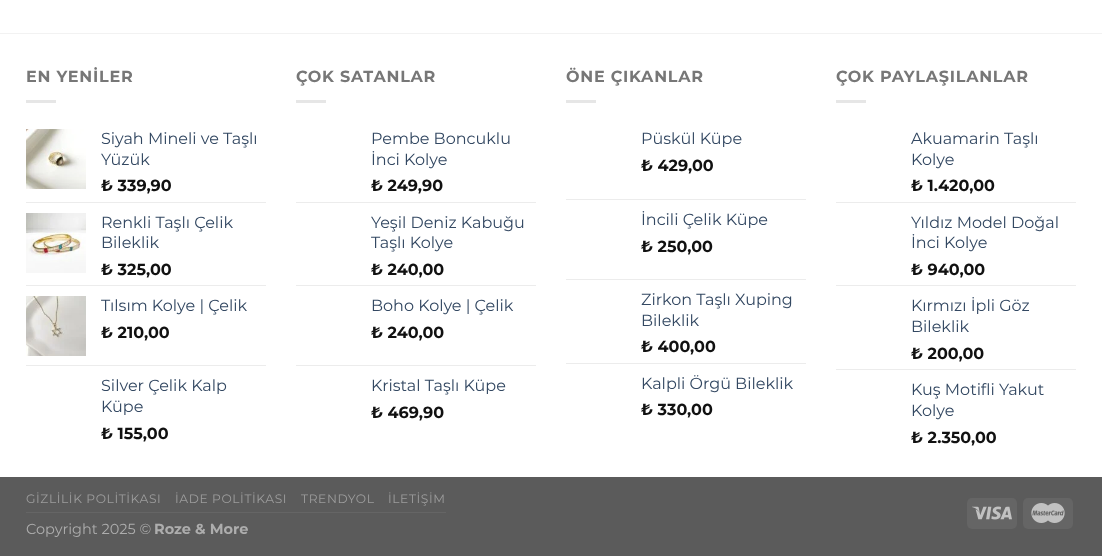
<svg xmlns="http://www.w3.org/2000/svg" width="1102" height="556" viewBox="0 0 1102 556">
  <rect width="100%" height="100%" fill="#ffffff"/>
  <rect x="0" y="33" width="1102" height="1" fill="#f2f2f2"/>
  <text x="26" y="82" font-family="Montserrat" font-size="16" font-weight="bold" letter-spacing="0.75" fill="#777777">EN YENİLER</text>
  <rect x="26" y="100" width="30" height="3" fill="#e6e6e6"/>
  <image x="26" y="129" width="60" height="60" href="img1.png"/>
  <text x="101" y="144" font-family="Montserrat" font-size="16" fill="#334862">Siyah Mineli ve Taşlı</text>
  <text x="101" y="165" font-family="Montserrat" font-size="16" fill="#334862">Yüzük</text>
  <text x="101" y="191" font-family="Montserrat" font-size="16" font-weight="bold" fill="#111111">₺ 339,90</text>
  <rect x="26" y="202" width="240" height="1" fill="#ececec"/>
  <image x="26" y="213" width="60" height="60" href="img2.png"/>
  <text x="101" y="228" font-family="Montserrat" font-size="16" fill="#334862">Renkli Taşlı Çelik</text>
  <text x="101" y="248" font-family="Montserrat" font-size="16" fill="#334862">Bileklik</text>
  <text x="101" y="275" font-family="Montserrat" font-size="16" font-weight="bold" fill="#111111">₺ 325,00</text>
  <rect x="26" y="285" width="240" height="1" fill="#ececec"/>
  <image x="26" y="296" width="60" height="60" href="img3.png"/>
  <text x="101" y="311" font-family="Montserrat" font-size="16" fill="#334862">Tılsım Kolye | Çelik</text>
  <text x="101" y="338" font-family="Montserrat" font-size="16" font-weight="bold" fill="#111111">₺ 210,00</text>
  <rect x="26" y="365" width="240" height="1" fill="#ececec"/>
  <text x="101" y="391" font-family="Montserrat" font-size="16" fill="#334862">Silver Çelik Kalp</text>
  <text x="101" y="412" font-family="Montserrat" font-size="16" fill="#334862">Küpe</text>
  <text x="101" y="439" font-family="Montserrat" font-size="16" font-weight="bold" fill="#111111">₺ 155,00</text>
  <text x="296" y="82" font-family="Montserrat" font-size="16" font-weight="bold" letter-spacing="0.75" fill="#777777">ÇOK SATANLAR</text>
  <rect x="296" y="100" width="30" height="3" fill="#e6e6e6"/>
  <text x="371" y="144" font-family="Montserrat" font-size="16" fill="#334862">Pembe Boncuklu</text>
  <text x="371" y="165" font-family="Montserrat" font-size="16" fill="#334862">İnci Kolye</text>
  <text x="371" y="191" font-family="Montserrat" font-size="16" font-weight="bold" fill="#111111">₺ 249,90</text>
  <rect x="296" y="202" width="240" height="1" fill="#ececec"/>
  <text x="371" y="228" font-family="Montserrat" font-size="16" fill="#334862">Yeşil Deniz Kabuğu</text>
  <text x="371" y="248" font-family="Montserrat" font-size="16" fill="#334862">Taşlı Kolye</text>
  <text x="371" y="275" font-family="Montserrat" font-size="16" font-weight="bold" fill="#111111">₺ 240,00</text>
  <rect x="296" y="285" width="240" height="1" fill="#ececec"/>
  <text x="371" y="311" font-family="Montserrat" font-size="16" fill="#334862">Boho Kolye | Çelik</text>
  <text x="371" y="338" font-family="Montserrat" font-size="16" font-weight="bold" fill="#111111">₺ 240,00</text>
  <rect x="296" y="365" width="240" height="1" fill="#ececec"/>
  <text x="371" y="391" font-family="Montserrat" font-size="16" fill="#334862">Kristal Taşlı Küpe</text>
  <text x="371" y="418" font-family="Montserrat" font-size="16" font-weight="bold" fill="#111111">₺ 469,90</text>
  <text x="566" y="82" font-family="Montserrat" font-size="16" font-weight="bold" letter-spacing="0.75" fill="#777777">ÖNE ÇIKANLAR</text>
  <rect x="566" y="100" width="30" height="3" fill="#e6e6e6"/>
  <text x="641" y="144" font-family="Montserrat" font-size="16" fill="#334862">Püskül Küpe</text>
  <text x="641" y="171" font-family="Montserrat" font-size="16" font-weight="bold" fill="#111111">₺ 429,00</text>
  <rect x="566" y="199" width="240" height="1" fill="#ececec"/>
  <text x="641" y="225" font-family="Montserrat" font-size="16" fill="#334862">İncili Çelik Küpe</text>
  <text x="641" y="252" font-family="Montserrat" font-size="16" font-weight="bold" fill="#111111">₺ 250,00</text>
  <rect x="566" y="279" width="240" height="1" fill="#ececec"/>
  <text x="641" y="305" font-family="Montserrat" font-size="16" fill="#334862">Zirkon Taşlı Xuping</text>
  <text x="641" y="326" font-family="Montserrat" font-size="16" fill="#334862">Bileklik</text>
  <text x="641" y="352" font-family="Montserrat" font-size="16" font-weight="bold" fill="#111111">₺ 400,00</text>
  <rect x="566" y="363" width="240" height="1" fill="#ececec"/>
  <text x="641" y="389" font-family="Montserrat" font-size="16" fill="#334862">Kalpli Örgü Bileklik</text>
  <text x="641" y="415" font-family="Montserrat" font-size="16" font-weight="bold" fill="#111111">₺ 330,00</text>
  <text x="836" y="82" font-family="Montserrat" font-size="16" font-weight="bold" letter-spacing="0.75" fill="#777777">ÇOK PAYLAŞILANLAR</text>
  <rect x="836" y="100" width="30" height="3" fill="#e6e6e6"/>
  <text x="911" y="144" font-family="Montserrat" font-size="16" fill="#334862">Akuamarin Taşlı</text>
  <text x="911" y="165" font-family="Montserrat" font-size="16" fill="#334862">Kolye</text>
  <text x="911" y="191" font-family="Montserrat" font-size="16" font-weight="bold" fill="#111111">₺ 1.420,00</text>
  <rect x="836" y="202" width="240" height="1" fill="#ececec"/>
  <text x="911" y="228" font-family="Montserrat" font-size="16" fill="#334862">Yıldız Model Doğal</text>
  <text x="911" y="248" font-family="Montserrat" font-size="16" fill="#334862">İnci Kolye</text>
  <text x="911" y="275" font-family="Montserrat" font-size="16" font-weight="bold" fill="#111111">₺ 940,00</text>
  <rect x="836" y="285" width="240" height="1" fill="#ececec"/>
  <text x="911" y="311" font-family="Montserrat" font-size="16" fill="#334862">Kırmızı İpli Göz</text>
  <text x="911" y="332" font-family="Montserrat" font-size="16" fill="#334862">Bileklik</text>
  <text x="911" y="359" font-family="Montserrat" font-size="16" font-weight="bold" fill="#111111">₺ 200,00</text>
  <rect x="836" y="369" width="240" height="1" fill="#ececec"/>
  <text x="911" y="395" font-family="Montserrat" font-size="16" fill="#334862">Kuş Motifli Yakut</text>
  <text x="911" y="416" font-family="Montserrat" font-size="16" fill="#334862">Kolye</text>
  <text x="911" y="443" font-family="Montserrat" font-size="16" font-weight="bold" fill="#111111">₺ 2.350,00</text>
  <rect x="0" y="477" width="1102" height="79" fill="#5b5b5b"/>
  <rect x="26" y="512" width="420" height="1" fill="#656565"/>
  <text x="26" y="503" font-family="Montserrat" font-size="12.25" letter-spacing="0.6" fill="#9d9d9d">GİZLİLİK POLİTİKASI</text>
  <text x="175" y="503" font-family="Montserrat" font-size="12.25" letter-spacing="0.6" fill="#9d9d9d">İADE POLİTİKASI</text>
  <text x="301" y="503" font-family="Montserrat" font-size="12.25" letter-spacing="0.6" fill="#9d9d9d">TRENDYOL</text>
  <text x="388" y="503" font-family="Montserrat" font-size="12.25" letter-spacing="0.6" fill="#9d9d9d">İLETİŞİM</text>
  <text x="26" y="534" font-family="Montserrat" font-size="14.5" fill="#adadad">Copyright 2025 ©</text>
  <text x="154" y="534" font-family="Montserrat" font-size="14.5" font-weight="bold" fill="#adadad">Roze &amp; More</text>
  <rect x="967" y="498" width="50" height="31" rx="5" fill="#656565"/>
  <image x="972" y="506" width="40" height="14" href="img4.png"/>
  <rect x="1023" y="498" width="50" height="31" rx="5" fill="#656565"/>
  <image x="1031" y="503" width="34" height="20" href="img5.png"/>
</svg>
